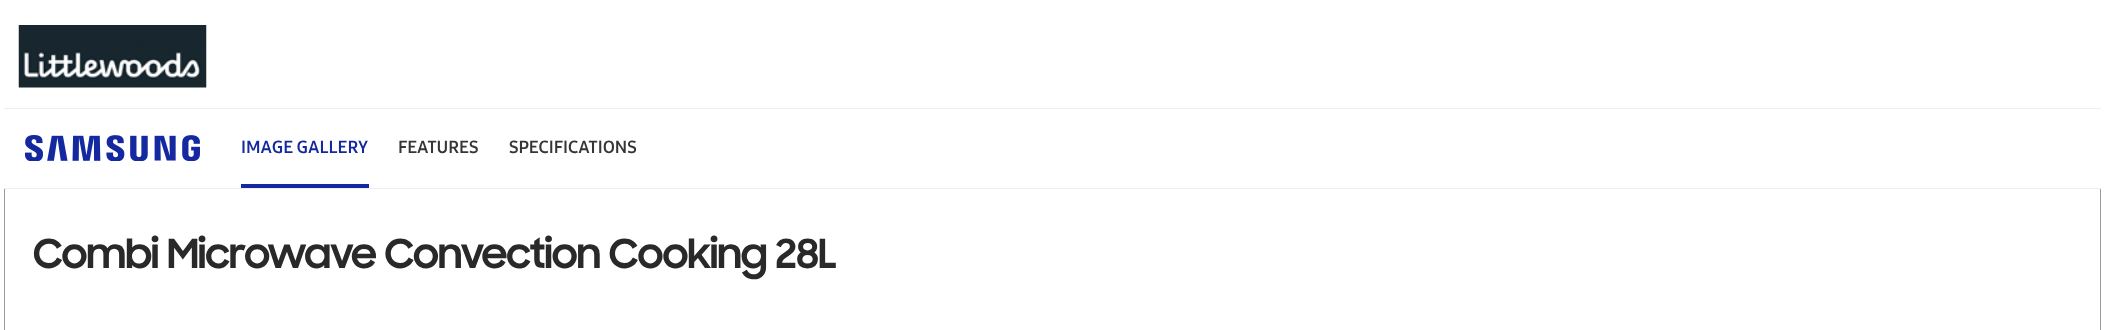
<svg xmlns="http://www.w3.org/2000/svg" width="2104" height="330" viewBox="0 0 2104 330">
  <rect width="100%" height="100%" fill="#ffffff"/>
  <image x="18" y="25" width="189" height="63" href="img1.png"/>
  <rect x="4" y="108" width="2097" height="1" fill="#eeeeee"/>
  <rect x="4" y="188" width="2097" height="1" fill="#eeeeee"/>
  <rect x="241" y="184" width="128" height="4" fill="#1428a0"/>
  <text x="241" y="153" font-family="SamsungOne" font-size="17.5" font-weight="bold" fill="#1428a0">IMAGE GALLERY</text>
  <text x="398" y="153" font-family="SamsungOne" font-size="17.5" font-weight="bold" fill="#363636">FEATURES</text>
  <text x="509" y="153" font-family="SamsungOne" font-size="17.5" font-weight="bold" fill="#363636">SPECIFICATIONS</text>
  <rect x="2100" y="189" width="1" height="141" fill="#999999"/>
  <rect x="4" y="189" width="1" height="141" fill="#999999"/>
  <image x="25" y="135" width="175" height="26" href="img2.png"/>
  <text x="33" y="268" font-family="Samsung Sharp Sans" font-size="40" font-weight="bold" letter-spacing="-1.1" fill="#292929">Combi Microwave Convection Cooking 28L</text>
</svg>
